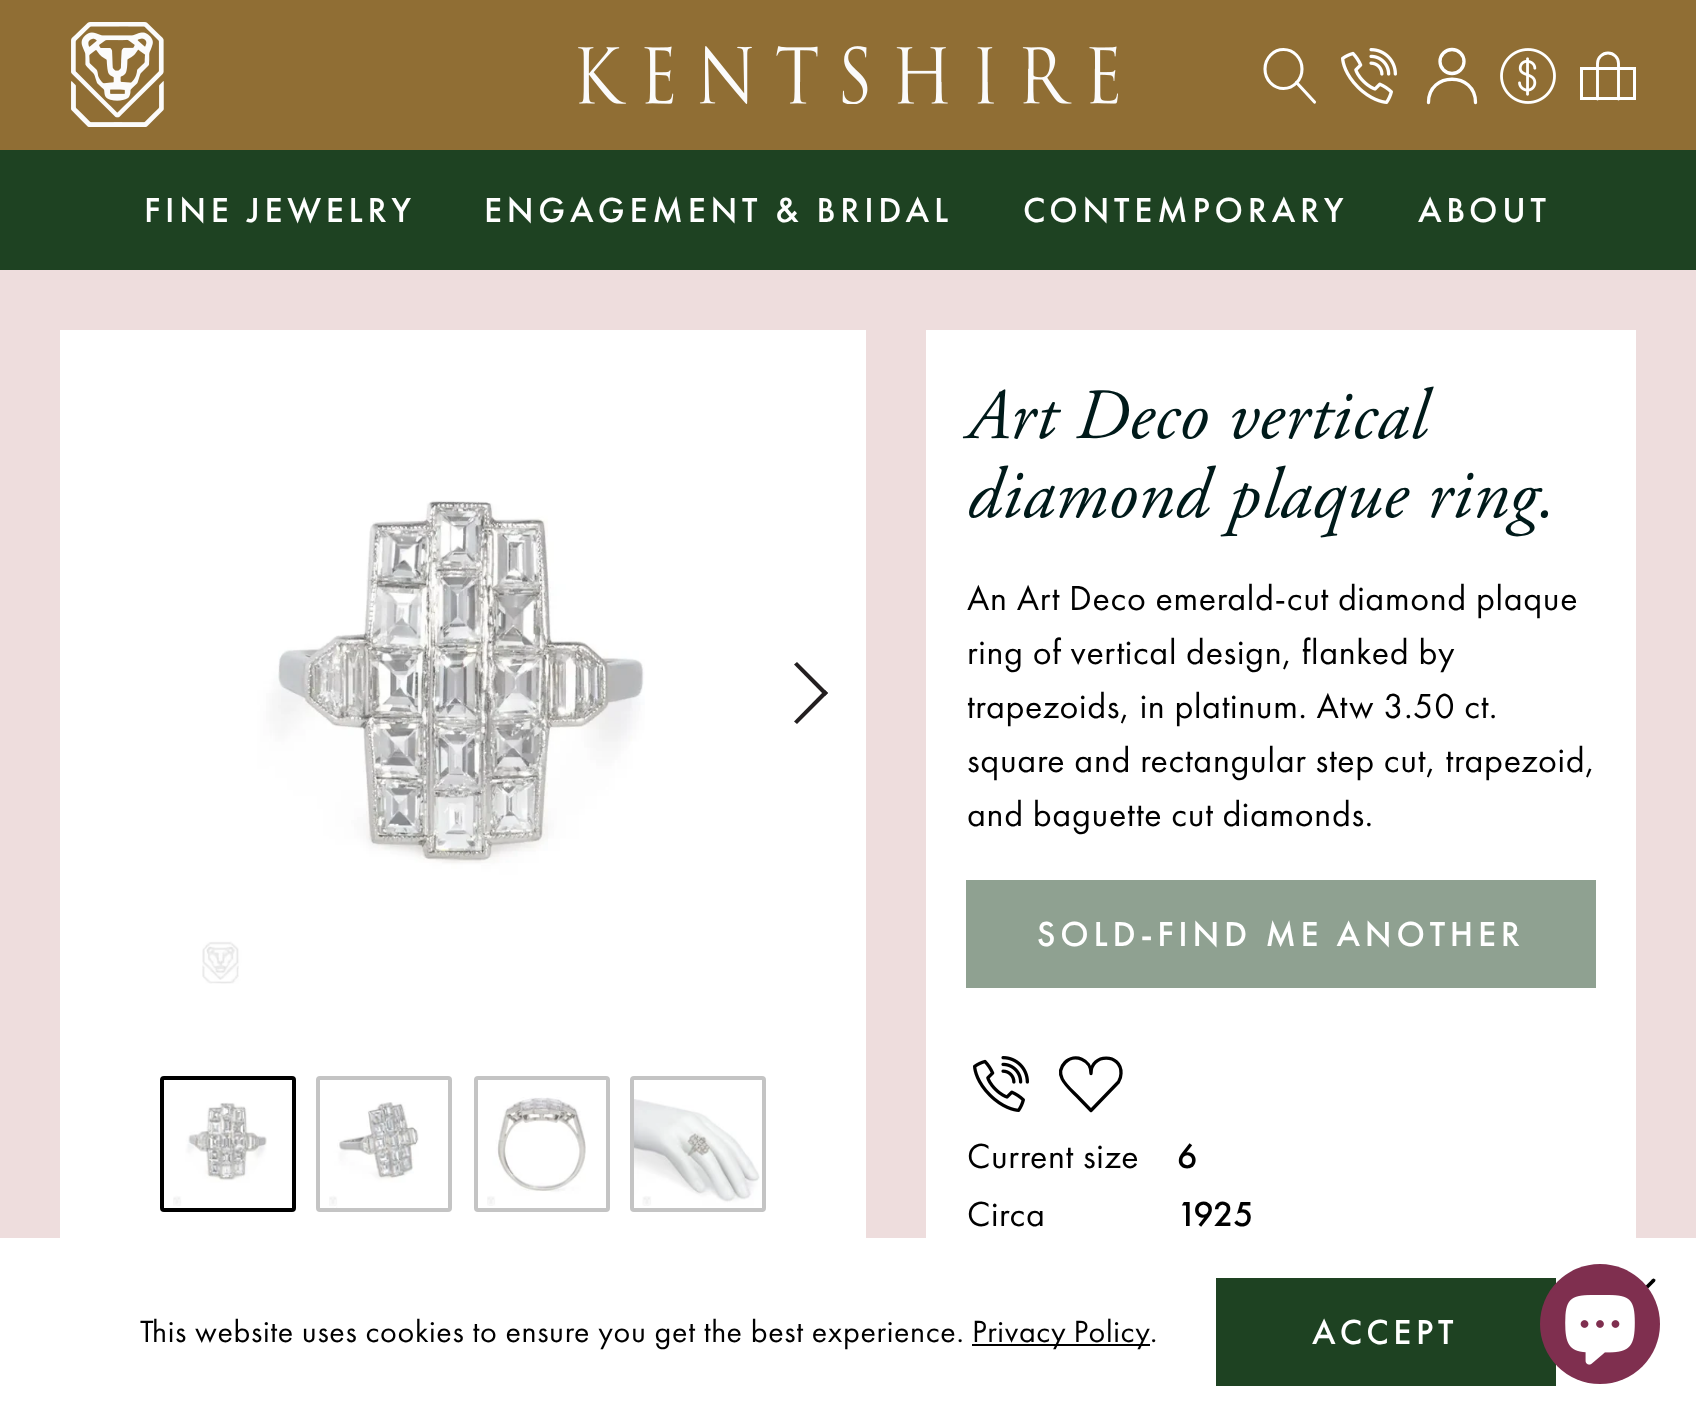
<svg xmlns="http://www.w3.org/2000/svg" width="1696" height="1426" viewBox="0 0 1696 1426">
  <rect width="100%" height="100%" fill="#eedddd"/>
  <rect x="0" y="0" width="1696" height="150" fill="#906e34"/>
  <image x="71" y="22" width="93" height="105" href="img1.png"/>
  <image x="578" y="46" width="540" height="58" href="img2.png"/>
  <ellipse cx="1283.5" cy="69" rx="18.5" ry="19.5" fill="none" stroke="#ffffff" stroke-width="3.1"/>
  <path d="M1296.5 82.5L1314.5 102" fill="none" stroke="#ffffff" stroke-width="3.1" stroke-linecap="round" stroke-linejoin="round"/>
  <image x="1341" y="48" width="56" height="56" href="img3.png"/>
  <circle cx="1452" cy="61.5" r="12" fill="none" stroke="#ffffff" stroke-width="3.3"/>
  <path d="M1475.5 102.5C1475.5 71.5 1428.5 71.5 1428.5 102.5" fill="none" stroke="#ffffff" stroke-width="3.3" stroke-linecap="round" stroke-linejoin="round"/>
  <image x="1500" y="48" width="56" height="56" href="img4.png"/>
  <rect x="1581.5" y="68.5" width="53" height="30" fill="none" stroke="#ffffff" stroke-width="3"/>
  <path d="M1597.5 99V63.5C1597.5 57.5 1602.5 53 1608 53C1613.5 53 1618.5 57.5 1618.5 63.5V99" fill="none" stroke="#ffffff" stroke-width="2.9" stroke-linecap="round" stroke-linejoin="round"/>
  <rect x="0" y="150" width="1696" height="120" fill="#1e4222"/>
  <text x="144" y="222" font-family="Futura PT" font-size="36" font-weight="500" letter-spacing="4.75" fill="#ffffff">FINE JEWELRY</text>
  <text x="484" y="222" font-family="Futura PT" font-size="36" font-weight="500" letter-spacing="4.75" fill="#ffffff">ENGAGEMENT &amp; BRIDAL</text>
  <text x="1023" y="222" font-family="Futura PT" font-size="36" font-weight="500" letter-spacing="4.75" fill="#ffffff">CONTEMPORARY</text>
  <text x="1418" y="222" font-family="Futura PT" font-size="36" font-weight="500" letter-spacing="4.75" fill="#ffffff">ABOUT</text>
  <rect x="60" y="330" width="806" height="908" fill="#ffffff"/>
  <image x="202" y="500" width="443" height="484" href="img5.png"/>
  <path d="M794 664.5L797 662L828 693L825 696Z" fill="#231f20"/>
  <path d="M794 721.5L825 690L828 693L797 724Z" fill="#231f20"/>
  <rect x="162" y="1078" width="132" height="132" rx="2" fill="none" stroke="#000000" stroke-width="4"/>
  <image x="173" y="1102" width="94" height="104" href="img6.png"/>
  <rect x="318" y="1078" width="132" height="132" rx="2" fill="none" stroke="#c4c4c4" stroke-width="4"/>
  <image x="329" y="1102" width="90" height="106" href="img7.png"/>
  <rect x="476" y="1078" width="132" height="132" rx="2" fill="none" stroke="#c4c4c4" stroke-width="4"/>
  <image x="487" y="1097" width="99" height="109" href="img8.png"/>
  <rect x="632" y="1078" width="132" height="132" rx="2" fill="none" stroke="#c4c4c4" stroke-width="4"/>
  <image x="634" y="1099" width="126" height="107" href="img9.png"/>
  <rect x="926" y="330" width="710" height="908" fill="#ffffff"/>
  <text x="967" y="438" font-family="Adobe Garamond" font-size="72" font-style="italic" letter-spacing="0.65" fill="#001a1a">Art Deco vertical</text>
  <text x="967" y="517" font-family="Adobe Garamond" font-size="72" font-style="italic" letter-spacing="0.65" fill="#001a1a">diamond plaque ring.</text>
  <text x="967" y="610" font-family="Futura PT" font-size="36" letter-spacing="0.65" fill="#000000">An Art Deco emerald-cut diamond plaque</text>
  <text x="967" y="664" font-family="Futura PT" font-size="36" letter-spacing="0.65" fill="#000000">ring of vertical design, flanked by</text>
  <text x="967" y="718" font-family="Futura PT" font-size="36" letter-spacing="0.65" fill="#000000">trapezoids, in platinum. Atw 3.50 ct.</text>
  <text x="967" y="772" font-family="Futura PT" font-size="36" letter-spacing="0.65" fill="#000000">square and rectangular step cut, trapezoid,</text>
  <text x="967" y="826" font-family="Futura PT" font-size="36" letter-spacing="0.65" fill="#000000">and baguette cut diamonds.</text>
  <rect x="966" y="880" width="630" height="108" fill="#8fa191"/>
  <text x="1037" y="946" font-family="Futura PT" font-size="36" font-weight="500" letter-spacing="4.75" fill="#ffffff">SOLD-FIND ME ANOTHER</text>
  <image x="973" y="1056" width="56" height="56" href="img10.png"/>
  <path d="M1121 1073.5C1122 1053 1090.5 1053 1091 1073.5C1091.5 1060 1074.5 1052.5 1065 1062.5C1053 1075 1068 1087 1076.5 1095.5L1091 1110.5L1118.5 1082C1120 1079.5 1121 1076.5 1121 1073.5Z" fill="none" stroke="#000000" stroke-width="3.3" stroke-linecap="round" stroke-linejoin="round"/>
  <text x="967" y="1168" font-family="Futura PT" font-size="36" letter-spacing="0.65" fill="#000000">Current size</text>
  <text x="1177" y="1168" font-family="Futura PT" font-size="36" font-weight="500" letter-spacing="0.65" fill="#000000">6</text>
  <text x="967" y="1226" font-family="Futura PT" font-size="36" letter-spacing="0.65" fill="#000000">Circa</text>
  <text x="1177" y="1226" font-family="Futura PT" font-size="36" font-weight="500" letter-spacing="0.65" fill="#000000">1925</text>
  <rect x="0" y="1238" width="1696" height="188" fill="#ffffff"/>
  <path d="M1653.5 1280.5L1624.5 1309.5" fill="none" stroke="#000000" stroke-width="3.8" stroke-linecap="round" stroke-linejoin="round"/>
  <text x="140" y="1342" font-family="Futura PT" font-size="32" letter-spacing="0.65" fill="#000000">This website uses cookies to ensure you get the best experience.</text>
  <rect x="972" y="1344" width="178" height="2" fill="#000000"/>
  <text x="972" y="1342" word-spacing="-1" font-family="Futura PT" font-size="32" letter-spacing="0.65" fill="#000000">Privacy Policy</text>
  <text x="1150" y="1342" font-family="Futura PT" font-size="32" letter-spacing="0.65" fill="#000000">.</text>
  <rect x="1216" y="1278" width="340" height="108" fill="#1e4222"/>
  <text x="1312" y="1344" font-family="Futura PT" font-size="36" font-weight="500" letter-spacing="4.75" fill="#ffffff">ACCEPT</text>
  <circle cx="1600" cy="1324" r="60" fill="#7f2f4f"/>
  <image x="1565" y="1295" width="70" height="70" href="img11.png"/>
</svg>
